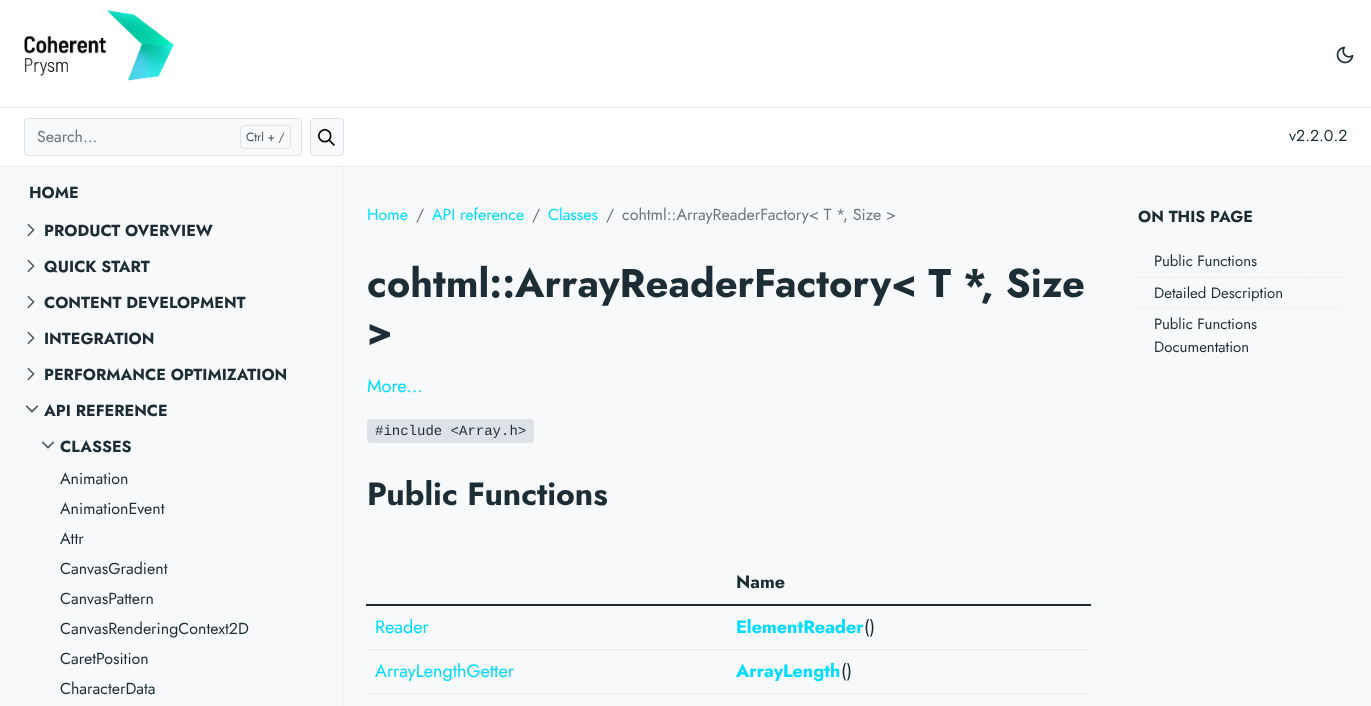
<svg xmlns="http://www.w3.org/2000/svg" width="1371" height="706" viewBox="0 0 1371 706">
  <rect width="100%" height="100%" fill="#f8f9fa"/>
  <rect x="0" y="0" width="1371" height="107" fill="#ffffff"/>
  <rect x="0" y="107" width="1371" height="1" fill="#e9ecef"/>
  <image x="24" y="10" width="150" height="71" href="img1.png"/>
  <image x="1336" y="46" width="18" height="18" href="img2.png"/>
  <rect x="0" y="108" width="1371" height="58" fill="#ffffff"/>
  <rect x="0" y="166" width="1371" height="1" fill="#e9ecef"/>
  <rect x="24.5" y="118.5" width="277" height="37" rx="3.5" fill="#f8f9fa" stroke="#dee2e6"/>
  <text x="37" y="142" font-family="Jost" font-size="16" fill="#6c757d">Search...</text>
  <rect x="240.5" y="125.5" width="50" height="23" rx="3.5" fill="none" stroke="#dee2e6"/>
  <text x="246" y="141" font-family="Jost" font-size="12" fill="#495057">Ctrl + /</text>
  <rect x="310.5" y="118.5" width="33" height="37" rx="3.5" fill="#f8f9fa" stroke="#dee2e6"/>
  <image x="317" y="128" width="18" height="18" href="img3.png"/>
  <text x="1289" y="141" font-family="Jost" font-size="16" fill="#1d2d35">v2.2.0.2</text>
  <rect x="342" y="167" width="1" height="539" fill="#e9ecef"/>
  <text x="29" y="198" font-family="Jost" font-size="16" font-weight="bold" fill="#1d2d35">HOME</text>
  <image x="27" y="223" width="8" height="14" href="img4.png"/>
  <text x="44" y="236" font-family="Jost" font-size="16" font-weight="bold" fill="#1d2d35">PRODUCT OVERVIEW</text>
  <image x="27" y="259" width="8" height="14" href="img4.png"/>
  <text x="44" y="272" font-family="Jost" font-size="16" font-weight="bold" fill="#1d2d35">QUICK START</text>
  <image x="27" y="295" width="8" height="14" href="img4.png"/>
  <text x="44" y="308" font-family="Jost" font-size="16" font-weight="bold" fill="#1d2d35">CONTENT DEVELOPMENT</text>
  <image x="27" y="331" width="8" height="14" href="img4.png"/>
  <text x="44" y="344" font-family="Jost" font-size="16" font-weight="bold" fill="#1d2d35">INTEGRATION</text>
  <image x="27" y="367" width="8" height="14" href="img4.png"/>
  <text x="44" y="380" font-family="Jost" font-size="16" font-weight="bold" fill="#1d2d35">PERFORMANCE OPTIMIZATION</text>
  <image x="25" y="405" width="14" height="8" href="img5.png"/>
  <text x="44" y="416" font-family="Jost" font-size="16" font-weight="bold" fill="#1d2d35">API REFERENCE</text>
  <image x="41" y="441" width="14" height="8" href="img5.png"/>
  <text x="60" y="452" font-family="Jost" font-size="16" font-weight="bold" fill="#1d2d35">CLASSES</text>
  <text x="60" y="484" font-family="Jost" font-size="16" fill="#1d2d35">Animation</text>
  <text x="60" y="514" font-family="Jost" font-size="16" fill="#1d2d35">AnimationEvent</text>
  <text x="60" y="544" font-family="Jost" font-size="16" fill="#1d2d35">Attr</text>
  <text x="60" y="574" font-family="Jost" font-size="16" fill="#1d2d35">CanvasGradient</text>
  <text x="60" y="604" font-family="Jost" font-size="16" fill="#1d2d35">CanvasPattern</text>
  <text x="60" y="634" font-family="Jost" font-size="16" fill="#1d2d35">CanvasRenderingContext2D</text>
  <text x="60" y="664" font-family="Jost" font-size="16" fill="#1d2d35">CaretPosition</text>
  <text x="60" y="694" font-family="Jost" font-size="16" fill="#1d2d35">CharacterData</text>
  <text x="367" y="220" font-family="Jost" font-size="16" fill="#00dcff">Home</text>
  <text x="416" y="220" font-family="Jost" font-size="16" fill="#6c757d">/</text>
  <text x="432" y="220" font-family="Jost" font-size="16" fill="#00dcff">API reference</text>
  <text x="532" y="220" font-family="Jost" font-size="16" fill="#6c757d">/</text>
  <text x="548" y="220" font-family="Jost" font-size="16" fill="#00dcff">Classes</text>
  <text x="606" y="220" font-family="Jost" font-size="16" fill="#6c757d">/</text>
  <text x="622" y="220" font-family="Jost" font-size="16" fill="#6c757d">cohtml::ArrayReaderFactory&lt; T *, Size &gt;</text>
  <text x="367" y="297" font-family="Jost" font-size="40" font-weight="bold" fill="#1d2d35">cohtml::ArrayReaderFactory&lt; T *, Size</text>
  <text x="367" y="345" font-family="Jost" font-size="40" font-weight="bold" fill="#1d2d35">&gt;</text>
  <text x="367" y="392" font-family="Jost" font-size="18" fill="#00dcff">More…</text>
  <rect x="367" y="419" width="167" height="24" rx="4" fill="#dee2e6"/>
  <text x="375" y="435" font-family="Liberation Mono" font-size="14" fill="#1d2d35">#include &lt;Array.h&gt;</text>
  <text x="367" y="505" font-family="Jost" font-size="32" font-weight="bold" fill="#1d2d35">Public Functions</text>
  <text x="736" y="588" font-family="Jost" font-size="18" font-weight="bold" fill="#1d2d35">Name</text>
  <rect x="366" y="604" width="725" height="2" fill="#1d2d35"/>
  <text x="375" y="633" font-family="Jost" font-size="18" fill="#00dcff">Reader</text>
  <rect x="366" y="649" width="724" height="1" fill="#e9ecef"/>
  <text x="736" y="633" font-family="Jost" font-size="18" font-weight="bold" fill="#00dcff">ElementReader</text>
  <text x="864" y="633" font-family="Jost" font-size="18" fill="#1d2d35">()</text>
  <text x="375" y="677" font-family="Jost" font-size="18" fill="#00dcff">ArrayLengthGetter</text>
  <rect x="366" y="693" width="724" height="1" fill="#e9ecef"/>
  <text x="736" y="677" font-family="Jost" font-size="18" font-weight="bold" fill="#00dcff">ArrayLength</text>
  <text x="841" y="677" font-family="Jost" font-size="18" fill="#1d2d35">()</text>
  <text x="1138" y="222" font-family="Jost" font-size="16" font-weight="bold" fill="#1d2d35">ON THIS PAGE</text>
  <text x="1154" y="266" font-family="Jost" font-size="15" fill="#1d2d35">Public Functions</text>
  <path d="M1138 277.5H1347" fill="none" stroke="#e9ecef" stroke-dasharray="3 2.02"/>
  <text x="1154" y="298" font-family="Jost" font-size="15" fill="#1d2d35">Detailed Description</text>
  <path d="M1138 308.5H1347" fill="none" stroke="#e9ecef" stroke-dasharray="3 2.02"/>
  <text x="1154" y="329" font-family="Jost" font-size="15" fill="#1d2d35">Public Functions</text>
  <text x="1154" y="352" font-family="Jost" font-size="15" fill="#1d2d35">Documentation</text>
</svg>
